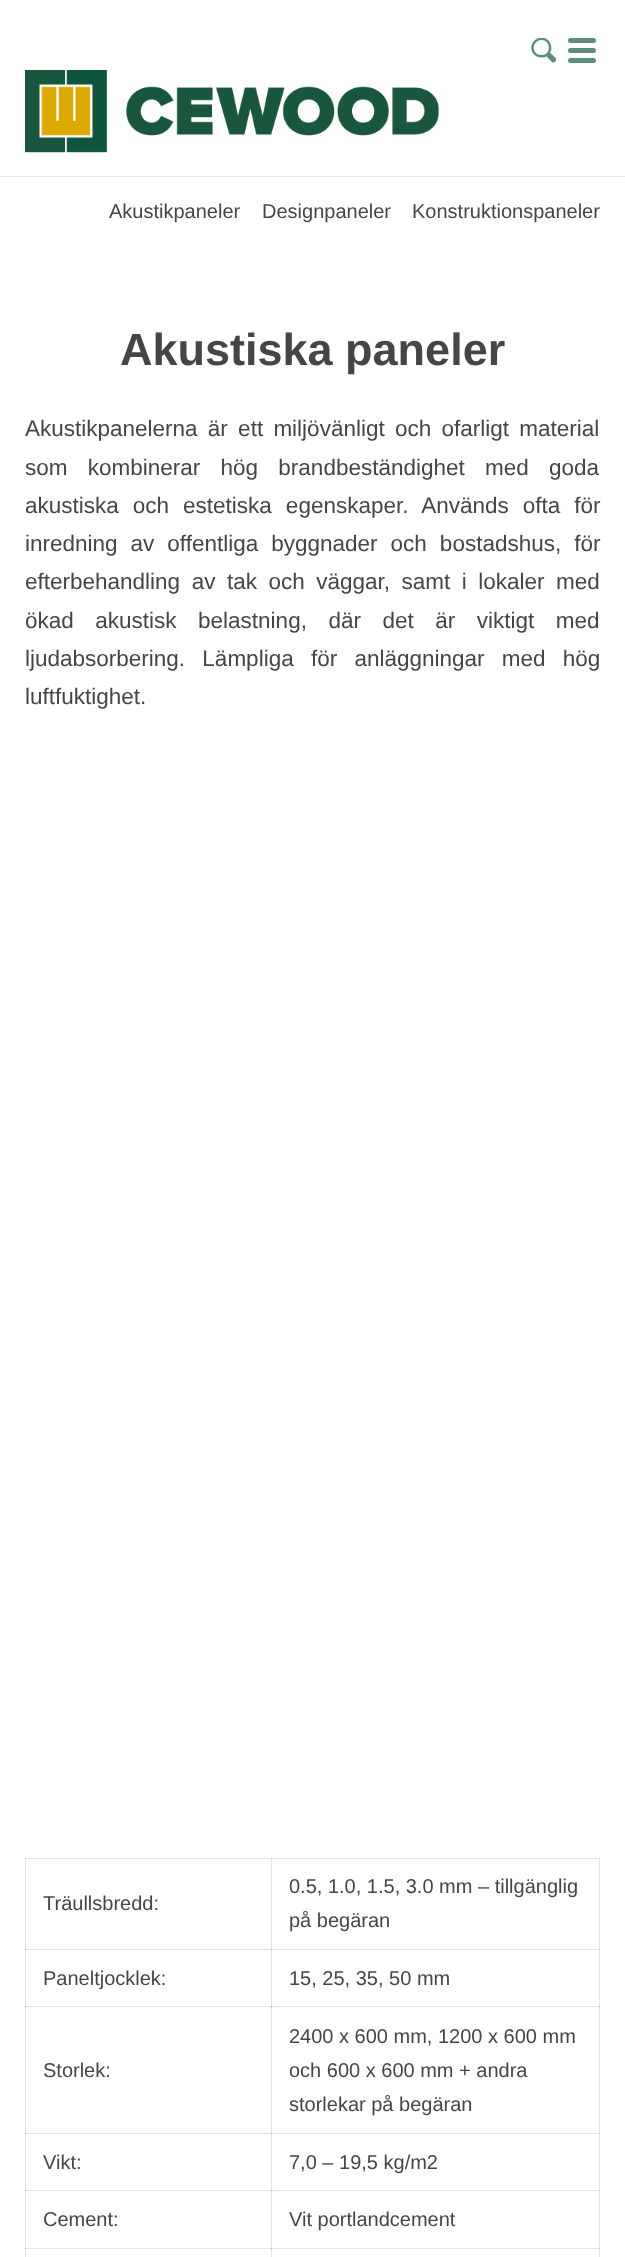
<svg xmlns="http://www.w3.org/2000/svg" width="625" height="2257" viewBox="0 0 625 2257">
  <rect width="100%" height="100%" fill="#ffffff"/>
  <rect x="25" y="1858" width="1" height="399" fill="#e6e6e6"/>
  <rect x="271" y="1858" width="1" height="399" fill="#e6e6e6"/>
  <rect x="25" y="1858" width="248" height="1" fill="#e6e6e6"/>
  <rect x="25" y="1858" width="1" height="1" fill="#cfcfcf"/>
  <rect x="599" y="1858" width="1" height="399" fill="#e6e6e6"/>
  <rect x="25" y="1949" width="575" height="1" fill="#e6e6e6"/>
  <rect x="25" y="1949" width="1" height="1" fill="#bababa"/>
  <rect x="25" y="2006" width="1" height="2" fill="#cfcfcf"/>
  <rect x="271" y="2006" width="1" height="2" fill="#cfcfcf"/>
  <rect x="25" y="2006" width="248" height="1" fill="#e6e6e6"/>
  <rect x="25" y="2006" width="1" height="1" fill="#bababa"/>
  <rect x="599" y="2006" width="1" height="2" fill="#cfcfcf"/>
  <rect x="25" y="2133" width="575" height="1" fill="#e6e6e6"/>
  <rect x="25" y="2133" width="1" height="1" fill="#bababa"/>
  <rect x="25" y="2190" width="575" height="1" fill="#e6e6e6"/>
  <rect x="25" y="2190" width="1" height="1" fill="#bababa"/>
  <rect x="25" y="2248" width="575" height="1" fill="#e6e6e6"/>
  <rect x="25" y="2248" width="1" height="1" fill="#bababa"/>
  <rect x="0" y="176" width="625" height="1" fill="#e6e6e6"/>
  <image x="531" y="38" width="25" height="25" href="img1.png"/>
  <rect x="568" y="38" width="28" height="5" rx="2.5" fill="#5e8d7e"/>
  <rect x="568" y="48" width="28" height="5" rx="2.5" fill="#5e8d7e"/>
  <rect x="568" y="58" width="28" height="5" rx="2.5" fill="#5e8d7e"/>
  <image x="25" y="70" width="414" height="83" href="img2.png"/>
  <text x="109" y="218" font-family="Liberation Sans" font-size="20" fill="#454545">Akustikpaneler</text>
  <text x="262" y="218" font-family="Liberation Sans" font-size="20" fill="#454545">Designpaneler</text>
  <text x="412" y="218" font-family="Liberation Sans" font-size="20" fill="#454545">Konstruktionspaneler</text>
  <text x="120" y="365" font-family="Liberation Sans" font-size="45" font-weight="bold" fill="#454545">Akustiska paneler</text>
  <text x="25" y="436" word-spacing="4" font-family="Liberation Sans" font-size="22.5" fill="#454545">Akustikpanelerna är ett miljövänligt och ofarligt material</text>
  <text x="25" y="475" word-spacing="14" font-family="Liberation Sans" font-size="22.5" fill="#454545">som kombinerar hög brandbeständighet med goda</text>
  <text x="25" y="513" word-spacing="7.75" font-family="Liberation Sans" font-size="22.5" fill="#454545">akustiska och estetiska egenskaper. Används ofta för</text>
  <text x="25" y="551" word-spacing="6.75" font-family="Liberation Sans" font-size="22.5" fill="#454545">inredning av offentliga byggnader och bostadshus, för</text>
  <text x="25" y="589" word-spacing="5.25" font-family="Liberation Sans" font-size="22.5" fill="#454545">efterbehandling av tak och väggar, samt i lokaler med</text>
  <text x="25" y="628" word-spacing="15.25" font-family="Liberation Sans" font-size="22.5" fill="#454545">ökad akustisk belastning, där det är viktigt med</text>
  <text x="25" y="666" word-spacing="11" font-family="Liberation Sans" font-size="22.5" fill="#454545">ljudabsorbering. Lämpliga för anläggningar med hög</text>
  <text x="25" y="704" font-family="Liberation Sans" font-size="22.5" fill="#454545">luftfuktighet.</text>
  <text x="43" y="1910" font-family="Liberation Sans" font-size="20" fill="#454545">Träullsbredd:</text>
  <rect x="271" y="1858" width="329" height="1" fill="#e6e6e6"/>
  <rect x="271" y="1858" width="2" height="1" fill="#cfcfcf"/>
  <rect x="271" y="1858" width="1" height="1" fill="#bababa"/>
  <rect x="599" y="1858" width="1" height="1" fill="#cfcfcf"/>
  <text x="289" y="1893" font-family="Liberation Sans" font-size="20" fill="#454545">0.5, 1.0, 1.5, 3.0 mm – tillgänglig</text>
  <text x="289" y="1927" font-family="Liberation Sans" font-size="20" fill="#454545">på begäran</text>
  <text x="43" y="1985" font-family="Liberation Sans" font-size="20" fill="#454545">Paneltjocklek:</text>
  <rect x="271" y="1949" width="2" height="1" fill="#cfcfcf"/>
  <rect x="271" y="1949" width="1" height="1" fill="#a7a7a7"/>
  <rect x="599" y="1949" width="1" height="1" fill="#bababa"/>
  <text x="289" y="1985" font-family="Liberation Sans" font-size="20" fill="#454545">15, 25, 35, 50 mm</text>
  <text x="43" y="2077" font-family="Liberation Sans" font-size="20" fill="#454545">Storlek:</text>
  <rect x="271" y="2006" width="329" height="1" fill="#e6e6e6"/>
  <rect x="271" y="2006" width="2" height="1" fill="#cfcfcf"/>
  <rect x="271" y="2006" width="1" height="1" fill="#a7a7a7"/>
  <rect x="599" y="2006" width="1" height="1" fill="#bababa"/>
  <text x="289" y="2043" font-family="Liberation Sans" font-size="20" fill="#454545">2400 x 600 mm, 1200 x 600 mm</text>
  <text x="289" y="2077" font-family="Liberation Sans" font-size="20" fill="#454545">och 600 x 600 mm + andra</text>
  <text x="289" y="2111" font-family="Liberation Sans" font-size="20" fill="#454545">storlekar på begäran</text>
  <text x="43" y="2169" font-family="Liberation Sans" font-size="20" fill="#454545">Vikt:</text>
  <rect x="271" y="2133" width="2" height="1" fill="#cfcfcf"/>
  <rect x="271" y="2133" width="1" height="1" fill="#a7a7a7"/>
  <rect x="599" y="2133" width="1" height="1" fill="#bababa"/>
  <text x="289" y="2169" font-family="Liberation Sans" font-size="20" fill="#454545">7,0 – 19,5 kg/m2</text>
  <text x="43" y="2226" font-family="Liberation Sans" font-size="20" fill="#454545">Cement:</text>
  <rect x="271" y="2190" width="2" height="1" fill="#cfcfcf"/>
  <rect x="271" y="2190" width="1" height="1" fill="#a7a7a7"/>
  <rect x="599" y="2190" width="1" height="1" fill="#bababa"/>
  <text x="289" y="2226" font-family="Liberation Sans" font-size="20" fill="#454545">Vit portlandcement</text>
  <rect x="271" y="2248" width="2" height="1" fill="#cfcfcf"/>
  <rect x="271" y="2248" width="1" height="1" fill="#a7a7a7"/>
  <rect x="599" y="2248" width="1" height="1" fill="#bababa"/>
</svg>
